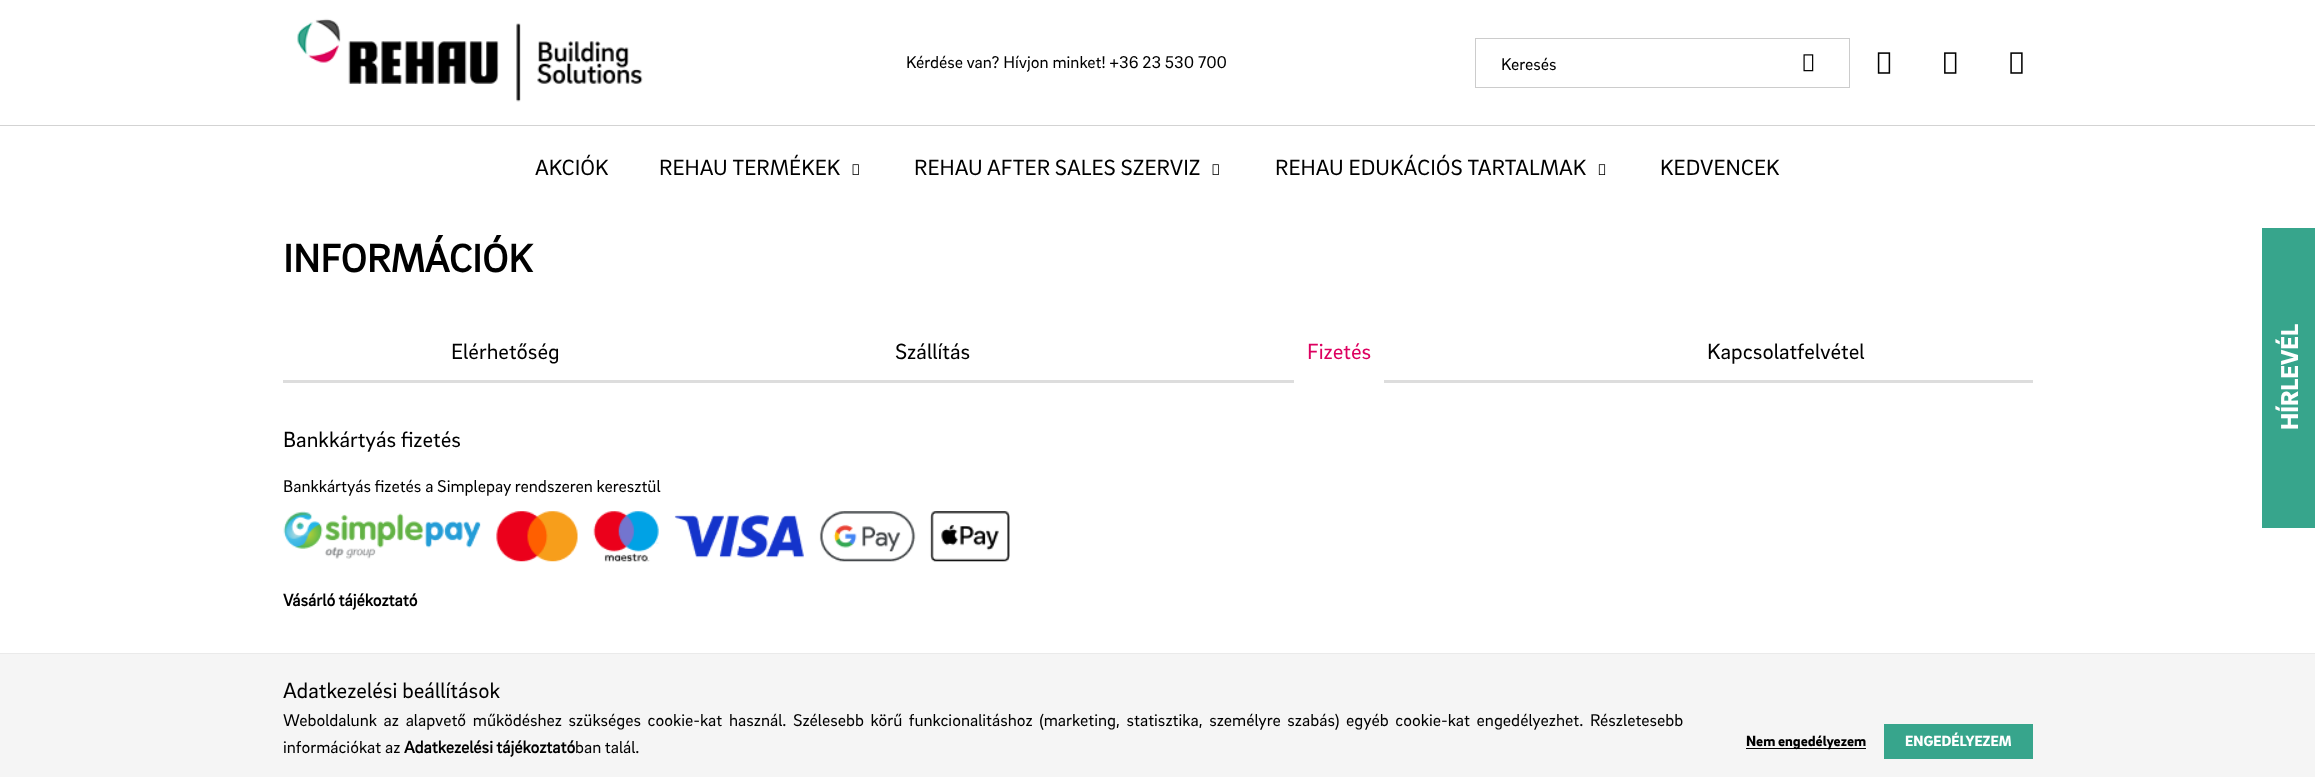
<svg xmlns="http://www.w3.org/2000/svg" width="2315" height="777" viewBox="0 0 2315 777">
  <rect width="100%" height="100%" fill="#ffffff"/>
  <image x="297" y="18" width="346" height="84" href="img1.png"/>
  <text x="906" y="68" font-family="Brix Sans" font-size="17.5" fill="#000000">Kérdése van? Hívjon minket! +36 23 530 700</text>
  <rect x="1475.5" y="38.5" width="374" height="49" fill="none" stroke="#cccccc"/>
  <text x="1501" y="70" font-family="Brix Sans" font-size="17.5" fill="#000000">Keresés</text>
  <image x="1803" y="54" width="11" height="18" href="img2.png"/>
  <image x="1877" y="52" width="14" height="22" href="img3.png"/>
  <image x="1944" y="52" width="13" height="22" href="img4.png"/>
  <image x="2010" y="52" width="13" height="22" href="img5.png"/>
  <rect x="0" y="125" width="2315" height="1" fill="#d3d3d3"/>
  <text x="535" y="175" font-family="Brix Sans" font-size="22.5" fill="#000000">AKCIÓK</text>
  <text x="659" y="175" font-family="Brix Sans" font-size="22.5" fill="#000000">REHAU TERMÉKEK</text>
  <image x="852" y="164" width="7" height="11" href="img6.png"/>
  <text x="914" y="175" font-family="Brix Sans" font-size="22.5" fill="#000000">REHAU AFTER SALES SZERVIZ</text>
  <image x="1212" y="164" width="7" height="11" href="img6.png"/>
  <text x="1275" y="175" font-family="Brix Sans" font-size="22.5" fill="#000000">REHAU EDUKÁCIÓS TARTALMAK</text>
  <image x="1598" y="164" width="8" height="11" href="img7.png"/>
  <text x="1660" y="175" font-family="Brix Sans" font-size="22.5" fill="#000000">KEDVENCEK</text>
  <text x="283" y="272" font-family="Brix Sans" font-size="40" font-weight="bold" fill="#000000">INFORMÁCIÓK</text>
  <text x="451" y="359" font-family="Brix Sans" font-size="22.5" fill="#000000">Elérhetőség</text>
  <text x="895" y="359" font-family="Brix Sans" font-size="22.5" fill="#000000">Szállítás</text>
  <rect x="283" y="380" width="1750" height="3" fill="#dddddd"/>
  <rect x="1294" y="380" width="90" height="3" fill="#ffffff"/>
  <text x="1307" y="359" font-family="Brix Sans" font-size="22.5" fill="#dd0060">Fizetés</text>
  <text x="1707" y="359" font-family="Brix Sans" font-size="22.5" fill="#000000">Kapcsolatfelvétel</text>
  <text x="283" y="447" font-family="Brix Sans" font-size="22.5" fill="#000000">Bankkártyás fizetés</text>
  <text x="283" y="492" font-family="Brix Sans" font-size="17.5" fill="#000000">Bankkártyás fizetés a Simplepay rendszeren keresztül</text>
  <image x="283" y="511" width="727" height="51" href="img8.png"/>
  <text x="283" y="606" font-family="Brix Sans" font-size="17.5" font-weight="bold" fill="#000000">Vásárló tájékoztató</text>
  <rect x="2262" y="228" width="53" height="300" fill="#37a58c"/>
  <text x="2298" y="430" transform="rotate(-90 2298 430)" font-family="Brix Sans" font-size="25" font-weight="900" fill="#ffffff">HÍRLEVÉL</text>
  <rect x="0" y="654" width="2315" height="123" fill="#f5f5f5"/>
  <rect x="0" y="653" width="2315" height="1" fill="#eaeaea"/>
  <text x="283" y="698" font-family="Brix Sans" font-size="22.5" fill="#000000">Adatkezelési beállítások</text>
  <text x="283" y="726" word-spacing="2.9" font-family="Brix Sans" font-size="17.5" fill="#000000">Weboldalunk az alapvető működéshez szükséges cookie-kat használ. Szélesebb körű funkcionalitáshoz (marketing, statisztika, személyre szabás) egyéb cookie-kat engedélyezhet. Részletesebb</text>
  <text x="283" y="753" font-family="Brix Sans" font-size="17.5" fill="#000000">információkat az</text>
  <text x="404" y="753" font-family="Brix Sans" font-size="17.5" font-weight="bold" fill="#000000">Adatkezelési tájékoztató</text>
  <text x="575" y="753" font-family="Brix Sans" font-size="17.5" fill="#000000">ban talál.</text>
  <rect x="1746" y="748" width="120" height="1" fill="#000000"/>
  <text x="1746" y="746" font-family="Brix Sans" font-size="15" font-weight="900" fill="#000000">Nem engedélyezem</text>
  <rect x="1884" y="724" width="149" height="35" fill="#37a58c"/>
  <text x="1905" y="746" font-family="Brix Sans" font-size="15" font-weight="900" fill="#ffffff">ENGEDÉLYEZEM</text>
</svg>
